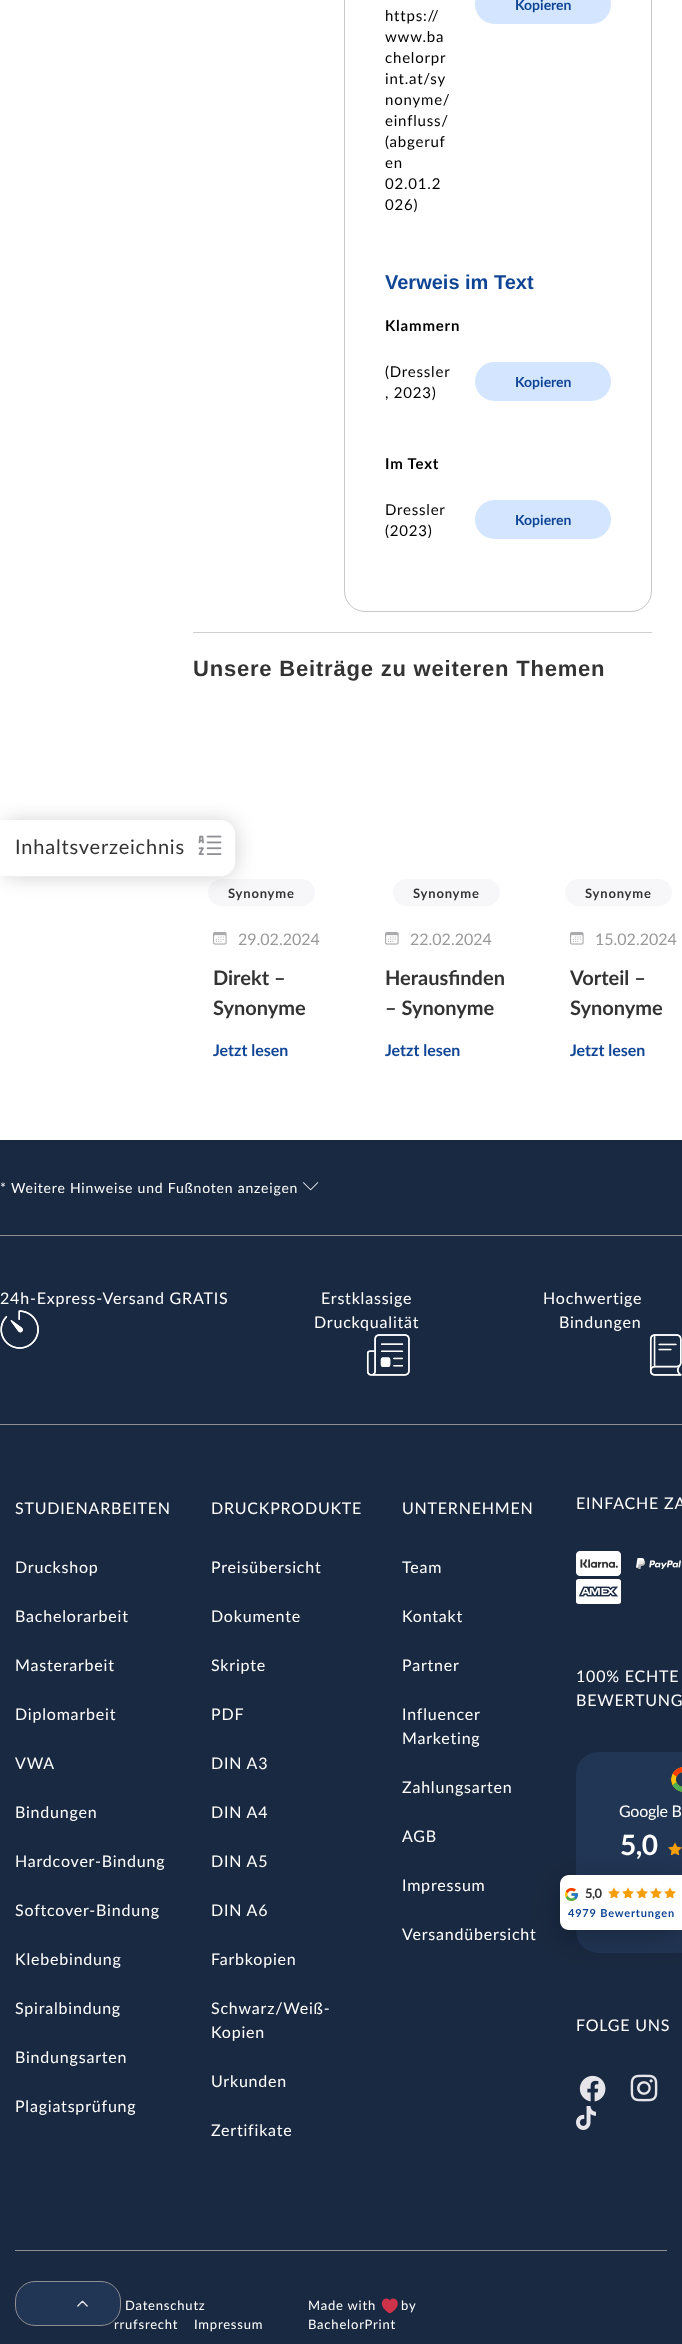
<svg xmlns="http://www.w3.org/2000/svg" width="682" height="2344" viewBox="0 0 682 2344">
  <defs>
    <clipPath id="clip1"><path d="M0 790H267V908H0ZM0 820H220C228.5 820 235 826.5 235 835V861C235 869.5 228.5 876 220 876H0Z" clip-rule="evenodd"/></clipPath>
    <filter id="blur1" x="-50%" y="-200%" width="200%" height="500%"><feGaussianBlur stdDeviation="10"/></filter>
    <filter id="blur2" x="-50%" y="-200%" width="200%" height="500%"><feGaussianBlur stdDeviation="15"/></filter>
  </defs>
  <rect width="100%" height="100%" fill="#ffffff"/>
  <rect x="205.5" y="876.5" width="112" height="32" rx="16" fill="#f7f7f9" stroke="#ffffff" stroke-width="5"/>
  <g clip-path="url(#clip1)">
    <rect x="1" y="821" width="235" height="56" rx="15" fill="#2f2f2f" fill-opacity="0.18" filter="url(#blur1)"/>
  </g>
  <path d="M0 820H220C228.5 820 235 826.5 235 835V861C235 869.5 228.5 876 220 876H0Z" fill="#ffffff" fill-opacity="0.75"/>
  <text x="15" y="854" font-family="Lato" font-size="20" letter-spacing="0.8" fill="#333333">Inhaltsverzeichnis</text>
  <image x="198" y="835" width="24" height="20" href="img1.png"/>
  <rect x="344.5" y="-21.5" width="307" height="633" rx="20.5" fill="none" stroke="#c7c7cc"/>
  <rect x="475" y="-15" width="136" height="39" rx="19.5" fill="#d4e6ff"/>
  <text x="515" y="10" font-family="Lato" font-size="14" font-weight="bold" fill="#0f4594">Kopieren</text>
  <text x="385" y="21" font-family="Lato" font-size="15" letter-spacing="0.8" fill="#000000">https://</text>
  <text x="385" y="42" font-family="Lato" font-size="15" letter-spacing="0.8" fill="#000000">www.ba</text>
  <text x="385" y="63" font-family="Lato" font-size="15" letter-spacing="0.8" fill="#000000">chelorpr</text>
  <text x="385" y="84" font-family="Lato" font-size="15" letter-spacing="0.8" fill="#000000">int.at/sy</text>
  <text x="385" y="105" font-family="Lato" font-size="15" letter-spacing="0.8" fill="#000000">nonyme/</text>
  <text x="385" y="126" font-family="Lato" font-size="15" letter-spacing="0.8" fill="#000000">einfluss/</text>
  <text x="385" y="147" font-family="Lato" font-size="15" letter-spacing="0.8" fill="#000000">(abgeruf</text>
  <text x="385" y="168" font-family="Lato" font-size="15" letter-spacing="0.8" fill="#000000">en</text>
  <text x="385" y="189" font-family="Lato" font-size="15" letter-spacing="0.8" fill="#000000">02.01.2</text>
  <text x="385" y="210" font-family="Lato" font-size="15" letter-spacing="0.8" fill="#000000">026)</text>
  <text x="385" y="289" font-family="Liberation Sans" font-size="20" font-weight="bold" fill="#0f4594">Verweis im Text</text>
  <text x="385" y="331" font-family="Lato" font-size="15" font-weight="bold" letter-spacing="0.8" fill="#000000">Klammern</text>
  <text x="385" y="377" font-family="Lato" font-size="15" letter-spacing="0.8" fill="#000000">(Dressler</text>
  <text x="385" y="398" font-family="Lato" font-size="15" letter-spacing="0.8" fill="#000000">, 2023)</text>
  <rect x="475" y="362" width="136" height="39" rx="19.5" fill="#d4e6ff"/>
  <text x="515" y="387" font-family="Lato" font-size="14" font-weight="bold" fill="#0f4594">Kopieren</text>
  <text x="385" y="469" font-family="Lato" font-size="15" font-weight="bold" letter-spacing="0.8" fill="#000000">Im Text</text>
  <text x="385" y="515" font-family="Lato" font-size="15" letter-spacing="0.8" fill="#000000">Dressler</text>
  <text x="385" y="536" font-family="Lato" font-size="15" letter-spacing="0.8" fill="#000000">(2023)</text>
  <rect x="475" y="500" width="136" height="39" rx="19.5" fill="#d4e6ff"/>
  <text x="515" y="525" font-family="Lato" font-size="14" font-weight="bold" fill="#0f4594">Kopieren</text>
  <rect x="193" y="632" width="459" height="1" fill="#ceced3"/>
  <text x="193" y="676" font-family="Liberation Sans" font-size="22" font-weight="bold" letter-spacing="0.8" fill="#333333">Unsere Beiträge zu weiteren Themen</text>
  <text x="228" y="898" font-family="Lato" font-size="13" font-weight="bold" letter-spacing="0.8" fill="#333333">Synonyme</text>
  <image x="213" y="932" width="14" height="13" href="img2.png"/>
  <text x="238" y="945" font-family="Lato" font-size="16" fill="#999999">29.02.2024</text>
  <text x="213" y="985" font-family="Lato" font-size="20" font-weight="bold" fill="#333333">Direkt –</text>
  <text x="213" y="1015" font-family="Lato" font-size="20" font-weight="bold" fill="#333333">Synonyme</text>
  <text x="213" y="1056" font-family="Lato" font-size="16" font-weight="bold" fill="#0f4594">Jetzt lesen</text>
  <rect x="390.5" y="876.5" width="112" height="32" rx="16" fill="#f7f7f9" stroke="#ffffff" stroke-width="5"/>
  <text x="413" y="898" font-family="Lato" font-size="13" font-weight="bold" letter-spacing="0.8" fill="#333333">Synonyme</text>
  <image x="385" y="932" width="14" height="13" href="img2.png"/>
  <text x="410" y="945" font-family="Lato" font-size="16" fill="#999999">22.02.2024</text>
  <text x="385" y="985" font-family="Lato" font-size="20" font-weight="bold" fill="#333333">Herausfinden</text>
  <text x="385" y="1015" font-family="Lato" font-size="20" font-weight="bold" fill="#333333">– Synonyme</text>
  <text x="385" y="1056" font-family="Lato" font-size="16" font-weight="bold" fill="#0f4594">Jetzt lesen</text>
  <rect x="562.5" y="876.5" width="112" height="32" rx="16" fill="#f7f7f9" stroke="#ffffff" stroke-width="5"/>
  <text x="585" y="898" font-family="Lato" font-size="13" font-weight="bold" letter-spacing="0.8" fill="#333333">Synonyme</text>
  <image x="570" y="932" width="14" height="13" href="img2.png"/>
  <text x="595" y="945" font-family="Lato" font-size="16" fill="#999999">15.02.2024</text>
  <text x="570" y="985" font-family="Lato" font-size="20" font-weight="bold" fill="#333333">Vorteil –</text>
  <text x="570" y="1015" font-family="Lato" font-size="20" font-weight="bold" fill="#333333">Synonyme</text>
  <text x="570" y="1056" font-family="Lato" font-size="16" font-weight="bold" fill="#0f4594">Jetzt lesen</text>
  <rect x="0" y="1140" width="682" height="95" fill="#192941"/>
  <rect x="0" y="1235" width="682" height="1" fill="#8e8e93"/>
  <text x="0" y="1193" font-family="Lato" font-size="14" letter-spacing="0.8" fill="#ffffff">* Weitere Hinweise und Fußnoten anzeigen</text>
  <image x="303" y="1182" width="16" height="9" href="img3.png"/>
  <rect x="0" y="1236" width="682" height="188" fill="#192941"/>
  <rect x="0" y="1424" width="682" height="1" fill="#8e8e93"/>
  <text x="0" y="1304" font-family="Lato" font-size="16" letter-spacing="0.8" fill="#ffffff">24h-Express-Versand GRATIS</text>
  <image x="0" y="1310" width="39" height="39" href="img4.png"/>
  <text x="321" y="1304" font-family="Lato" font-size="16" letter-spacing="0.8" fill="#ffffff">Erstklassige</text>
  <text x="314" y="1328" font-family="Lato" font-size="16" letter-spacing="0.8" fill="#ffffff">Druckqualität</text>
  <image x="366" y="1334" width="44" height="42" href="img5.png"/>
  <text x="543" y="1304" font-family="Lato" font-size="16" letter-spacing="0.8" fill="#ffffff">Hochwertige</text>
  <text x="559" y="1328" font-family="Lato" font-size="16" letter-spacing="0.8" fill="#ffffff">Bindungen</text>
  <image x="649" y="1334" width="33" height="42" href="img6.png"/>
  <rect x="0" y="1425" width="682" height="919" fill="#192941"/>
  <text x="15" y="1514" font-family="Lato" font-size="16" letter-spacing="0.8" fill="#ffffff">STUDIENARBEITEN</text>
  <text x="15" y="1573" font-family="Lato" font-size="16" letter-spacing="0.8" fill="#ffffff">Druckshop</text>
  <text x="15" y="1622" font-family="Lato" font-size="16" letter-spacing="0.8" fill="#ffffff">Bachelorarbeit</text>
  <text x="15" y="1671" font-family="Lato" font-size="16" letter-spacing="0.8" fill="#ffffff">Masterarbeit</text>
  <text x="15" y="1720" font-family="Lato" font-size="16" letter-spacing="0.8" fill="#ffffff">Diplomarbeit</text>
  <text x="15" y="1769" font-family="Lato" font-size="16" letter-spacing="0.8" fill="#ffffff">VWA</text>
  <text x="15" y="1818" font-family="Lato" font-size="16" letter-spacing="0.8" fill="#ffffff">Bindungen</text>
  <text x="15" y="1867" font-family="Lato" font-size="16" letter-spacing="0.8" fill="#ffffff">Hardcover-Bindung</text>
  <text x="15" y="1916" font-family="Lato" font-size="16" letter-spacing="0.8" fill="#ffffff">Softcover-Bindung</text>
  <text x="15" y="1965" font-family="Lato" font-size="16" letter-spacing="0.8" fill="#ffffff">Klebebindung</text>
  <text x="15" y="2014" font-family="Lato" font-size="16" letter-spacing="0.8" fill="#ffffff">Spiralbindung</text>
  <text x="15" y="2063" font-family="Lato" font-size="16" letter-spacing="0.8" fill="#ffffff">Bindungsarten</text>
  <text x="15" y="2112" font-family="Lato" font-size="16" letter-spacing="0.8" fill="#ffffff">Plagiatsprüfung</text>
  <text x="211" y="1514" font-family="Lato" font-size="16" letter-spacing="0.8" fill="#ffffff">DRUCKPRODUKTE</text>
  <text x="211" y="1573" font-family="Lato" font-size="16" letter-spacing="0.8" fill="#ffffff">Preisübersicht</text>
  <text x="211" y="1622" font-family="Lato" font-size="16" letter-spacing="0.8" fill="#ffffff">Dokumente</text>
  <text x="211" y="1671" font-family="Lato" font-size="16" letter-spacing="0.8" fill="#ffffff">Skripte</text>
  <text x="211" y="1720" font-family="Lato" font-size="16" letter-spacing="0.8" fill="#ffffff">PDF</text>
  <text x="211" y="1769" font-family="Lato" font-size="16" letter-spacing="0.8" fill="#ffffff">DIN A3</text>
  <text x="211" y="1818" font-family="Lato" font-size="16" letter-spacing="0.8" fill="#ffffff">DIN A4</text>
  <text x="211" y="1867" font-family="Lato" font-size="16" letter-spacing="0.8" fill="#ffffff">DIN A5</text>
  <text x="211" y="1916" font-family="Lato" font-size="16" letter-spacing="0.8" fill="#ffffff">DIN A6</text>
  <text x="211" y="1965" font-family="Lato" font-size="16" letter-spacing="0.8" fill="#ffffff">Farbkopien</text>
  <text x="211" y="2014" font-family="Lato" font-size="16" letter-spacing="0.8" fill="#ffffff">Schwarz/Weiß-</text>
  <text x="211" y="2038" font-family="Lato" font-size="16" letter-spacing="0.8" fill="#ffffff">Kopien</text>
  <text x="211" y="2087" font-family="Lato" font-size="16" letter-spacing="0.8" fill="#ffffff">Urkunden</text>
  <text x="211" y="2136" font-family="Lato" font-size="16" letter-spacing="0.8" fill="#ffffff">Zertifikate</text>
  <text x="402" y="1514" font-family="Lato" font-size="16" letter-spacing="0.8" fill="#ffffff">UNTERNEHMEN</text>
  <text x="402" y="1573" font-family="Lato" font-size="16" letter-spacing="0.8" fill="#ffffff">Team</text>
  <text x="402" y="1622" font-family="Lato" font-size="16" letter-spacing="0.8" fill="#ffffff">Kontakt</text>
  <text x="402" y="1671" font-family="Lato" font-size="16" letter-spacing="0.8" fill="#ffffff">Partner</text>
  <text x="402" y="1720" font-family="Lato" font-size="16" letter-spacing="0.8" fill="#ffffff">Influencer</text>
  <text x="402" y="1744" font-family="Lato" font-size="16" letter-spacing="0.8" fill="#ffffff">Marketing</text>
  <text x="402" y="1793" font-family="Lato" font-size="16" letter-spacing="0.8" fill="#ffffff">Zahlungsarten</text>
  <text x="402" y="1842" font-family="Lato" font-size="16" letter-spacing="0.8" fill="#ffffff">AGB</text>
  <text x="402" y="1891" font-family="Lato" font-size="16" letter-spacing="0.8" fill="#ffffff">Impressum</text>
  <text x="402" y="1940" font-family="Lato" font-size="16" letter-spacing="0.8" fill="#ffffff">Versandübersicht</text>
  <text x="576" y="1509" font-family="Lato" font-size="16" letter-spacing="0.8" fill="#ffffff">EINFACHE ZA</text>
  <image x="576" y="1551" width="45" height="25" href="img7.png"/>
  <image x="636" y="1558" width="45" height="11" href="img8.png"/>
  <image x="576" y="1579" width="45" height="25" href="img9.png"/>
  <text x="576" y="1682" font-family="Lato" font-size="16" letter-spacing="0.8" fill="#ffffff">100% ECHTE</text>
  <text x="576" y="1706" font-family="Lato" font-size="16" letter-spacing="0.8" fill="#ffffff">BEWERTUNG</text>
  <rect x="576" y="1752" width="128" height="201" rx="22" fill="#213554"/>
  <image x="671" y="1767" width="11" height="25" href="img10.png"/>
  <text x="619" y="1817" font-family="Lato" font-size="16" letter-spacing="-0.25" fill="#ffffff">Google B</text>
  <text x="620" y="1855" font-family="Lato" font-size="28" font-weight="bold" letter-spacing="-0.5" fill="#ffffff">5,0</text>
  <image x="668" y="1842" width="14" height="13" href="img11.png"/>
  <text x="576" y="2031" font-family="Lato" font-size="16" letter-spacing="0.8" fill="#ffffff">FOLGE UNS</text>
  <image x="579" y="2075" width="27" height="27" href="img12.png"/>
  <image x="630" y="2074" width="28" height="28" href="img13.png"/>
  <image x="576" y="2106" width="20" height="24" href="img14.png"/>
  <rect x="15" y="2250" width="652" height="1" fill="#8e8e93"/>
  <text x="114" y="2329" font-family="Lato" font-size="13" letter-spacing="0.8" fill="#ffffff">rrufsrecht</text>
  <rect x="15.5" y="2281.5" width="105" height="44" rx="19.5" fill="#213554" stroke="#8e8e93"/>
  <image x="77" y="2300" width="11" height="7" href="img15.png"/>
  <text x="125" y="2310" font-family="Lato" font-size="13" letter-spacing="0.8" fill="#ffffff">Datenschutz</text>
  <text x="194" y="2329" font-family="Lato" font-size="13" letter-spacing="0.8" fill="#ffffff">Impressum</text>
  <text x="308" y="2310" font-family="Lato" font-size="13" letter-spacing="0.8" fill="#ffffff">Made with</text>
  <image x="381" y="2298" width="17" height="16" href="img16.png"/>
  <text x="401" y="2310" font-family="Lato" font-size="13" letter-spacing="0.8" fill="#ffffff">by</text>
  <text x="308" y="2329" font-family="Lato" font-size="13" letter-spacing="0.8" fill="#ffffff">BachelorPrint</text>
  <rect x="560" y="1883" width="122" height="55" rx="9" fill="#000000" fill-opacity="0.25" filter="url(#blur2)"/>
  <path d="M569 1875H682V1930H569C564 1930 560 1926 560 1921V1884C560 1879 564 1875 569 1875Z" fill="#ffffff"/>
  <image x="565" y="1888" width="13" height="13" href="img17.png"/>
  <text x="585" y="1898" font-family="Lato" font-size="13" font-weight="bold" letter-spacing="-0.5" fill="#333333">5,0</text>
  <image x="608" y="1887" width="12" height="11" href="img18.png"/>
  <image x="622" y="1887" width="12" height="11" href="img18.png"/>
  <image x="636" y="1887" width="12" height="11" href="img18.png"/>
  <image x="650" y="1887" width="12" height="11" href="img18.png"/>
  <image x="664" y="1887" width="12" height="11" href="img18.png"/>
  <text x="568" y="1917" font-family="Lato" font-size="11" font-weight="bold" letter-spacing="0.8" fill="#0f4594">4979 Bewertungen</text>
</svg>
